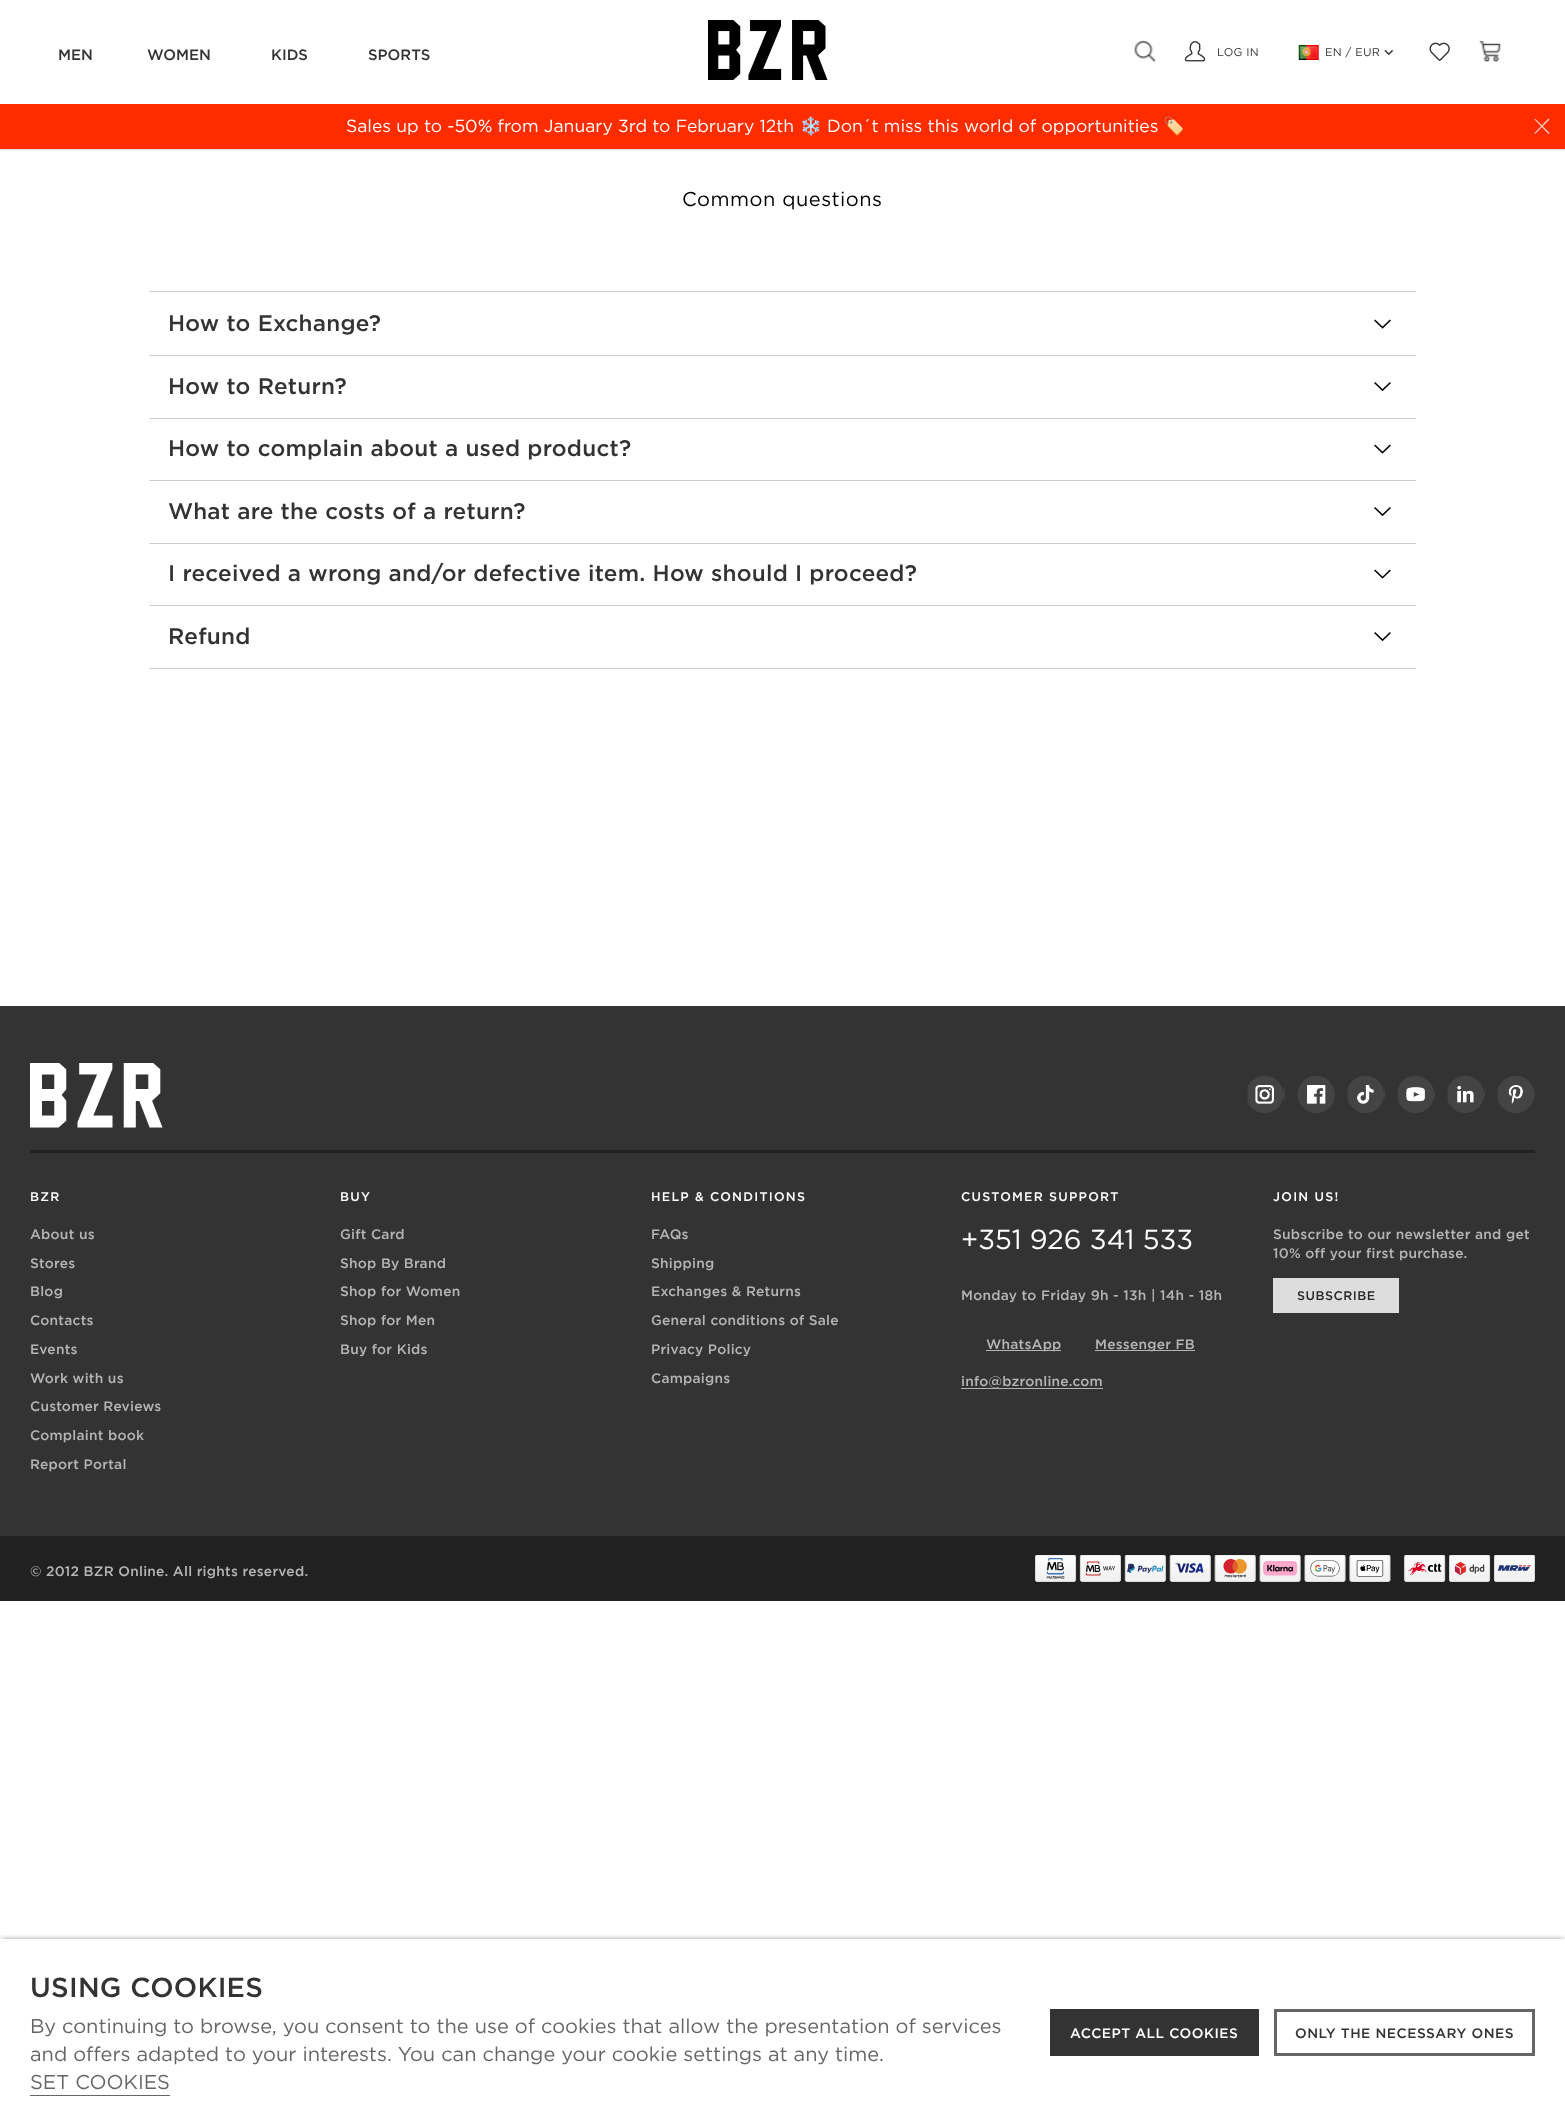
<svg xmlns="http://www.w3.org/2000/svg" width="1565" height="2127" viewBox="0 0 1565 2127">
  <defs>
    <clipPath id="clip1"><rect x="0" y="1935" width="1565" height="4"/></clipPath>
    <filter id="blur1" x="-50%" y="-200%" width="200%" height="500%"><feGaussianBlur stdDeviation="3"/></filter>
  </defs>
  <rect width="100%" height="100%" fill="#ffffff"/>
  <rect x="0" y="149" width="1565" height="1" fill="#dddddd"/>
  <text x="58" y="60" font-family="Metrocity" font-size="15" font-weight="500" fill="#333333">MEN</text>
  <text x="147" y="60" font-family="Metrocity" font-size="15" font-weight="500" fill="#333333">WOMEN</text>
  <text x="271" y="60" font-family="Metrocity" font-size="15" font-weight="500" fill="#333333">KIDS</text>
  <text x="368" y="60" font-family="Metrocity" font-size="15" font-weight="500" fill="#333333">SPORTS</text>
  <image x="708" y="20" width="120" height="60" href="img1.png"/>
  <image x="1134" y="40" width="22" height="22" href="img2.png"/>
  <image x="1184" y="41" width="22" height="21" href="img3.png"/>
  <text x="1217" y="56" font-family="Metrocity" font-size="11.25" letter-spacing="0.25" fill="#333333">LOG IN</text>
  <image x="1298" y="45" width="21" height="15" href="img4.png"/>
  <text x="1325" y="56" font-family="Metrocity" font-size="11.25" letter-spacing="0.25" fill="#333333">EN / EUR</text>
  <image x="1384" y="49" width="9" height="7" href="img5.png"/>
  <image x="1429" y="42" width="21" height="19" href="img6.png"/>
  <image x="1479" y="40" width="22" height="22" href="img7.png"/>
  <rect x="0" y="104" width="1565" height="45" fill="#ff2c00"/>
  <text x="346" y="132" font-family="Metrocity" font-size="17.5" fill="#ffffff">Sales up to -50% from January 3rd to February 12th</text>
  <text x="800" y="132" font-family="Noto Color Emoji" font-size="17.5" fill="#ffffff">❄️</text>
  <text x="827" y="132" font-family="Metrocity" font-size="17.5" fill="#ffffff">Don´t miss this world of opportunities</text>
  <text x="1163" y="132" font-family="Noto Color Emoji" font-size="17.5" fill="#ffffff">🏷️</text>
  <path d="M1548.5 118.5L1549.5 119.5L1535 134L1534.5 133Z" fill="#ffd5cc"/>
  <path d="M1534.5 119.5L1535 118.5L1549.5 133L1548.5 134Z" fill="#ffd5cc"/>
  <text x="682" y="206" font-family="Metrocity" font-size="20" letter-spacing="0.5" fill="#000000">Common questions</text>
  <rect x="149" y="291" width="1267" height="1" fill="#cccccc"/>
  <rect x="149" y="355" width="1267" height="1" fill="#cccccc"/>
  <text x="168" y="331" font-family="Metrocity" font-size="22.5" font-weight="500" letter-spacing="0.25" fill="#333333">How to Exchange?</text>
  <image x="1374" y="319" width="17" height="10" href="img8.png"/>
  <rect x="149" y="418" width="1267" height="1" fill="#cccccc"/>
  <text x="168" y="394" font-family="Metrocity" font-size="22.5" font-weight="500" letter-spacing="0.25" fill="#333333">How to Return?</text>
  <image x="1374" y="382" width="17" height="10" href="img9.png"/>
  <rect x="149" y="480" width="1267" height="1" fill="#cccccc"/>
  <text x="168" y="456" font-family="Metrocity" font-size="22.5" font-weight="500" letter-spacing="0.25" fill="#333333">How to complain about a used product?</text>
  <image x="1374" y="444" width="17" height="10" href="img8.png"/>
  <rect x="149" y="543" width="1267" height="1" fill="#cccccc"/>
  <text x="168" y="519" font-family="Metrocity" font-size="22.5" font-weight="500" letter-spacing="0.25" fill="#333333">What are the costs of a return?</text>
  <image x="1374" y="507" width="17" height="10" href="img9.png"/>
  <rect x="149" y="605" width="1267" height="1" fill="#cccccc"/>
  <text x="168" y="581" font-family="Metrocity" font-size="22.5" font-weight="500" letter-spacing="0.25" fill="#333333">I received a wrong and/or defective item. How should I proceed?</text>
  <image x="1374" y="569" width="17" height="10" href="img8.png"/>
  <rect x="149" y="668" width="1267" height="1" fill="#cccccc"/>
  <text x="168" y="644" font-family="Metrocity" font-size="22.5" font-weight="500" letter-spacing="0.25" fill="#333333">Refund</text>
  <image x="1374" y="632" width="17" height="10" href="img9.png"/>
  <rect x="0" y="1006" width="1565" height="530" fill="#333333"/>
  <rect x="30" y="1150" width="1505" height="3" fill="#212121"/>
  <image x="30" y="1063" width="133" height="65" href="img10.png"/>
  <image x="1247" y="1075" width="38" height="38" href="img11.png"/>
  <image x="1297" y="1075" width="38" height="38" href="img12.png"/>
  <image x="1347" y="1075" width="38" height="38" href="img13.png"/>
  <image x="1397" y="1075" width="38" height="38" href="img14.png"/>
  <image x="1447" y="1075" width="38" height="38" href="img15.png"/>
  <image x="1497" y="1075" width="38" height="38" href="img16.png"/>
  <text x="30" y="1201" font-family="Metrocity" font-size="12.5" font-weight="500" letter-spacing="1.25" fill="#ffffff">BZR</text>
  <text x="30" y="1239" font-family="Metrocity" font-size="13.75" font-weight="500" letter-spacing="0.25" fill="#b5b5b5">About us</text>
  <text x="30" y="1268" font-family="Metrocity" font-size="13.75" font-weight="500" letter-spacing="0.25" fill="#b5b5b5">Stores</text>
  <text x="30" y="1296" font-family="Metrocity" font-size="13.75" font-weight="500" letter-spacing="0.25" fill="#b5b5b5">Blog</text>
  <text x="30" y="1325" font-family="Metrocity" font-size="13.75" font-weight="500" letter-spacing="0.25" fill="#b5b5b5">Contacts</text>
  <text x="30" y="1354" font-family="Metrocity" font-size="13.75" font-weight="500" letter-spacing="0.25" fill="#b5b5b5">Events</text>
  <text x="30" y="1383" font-family="Metrocity" font-size="13.75" font-weight="500" letter-spacing="0.25" fill="#b5b5b5">Work with us</text>
  <text x="30" y="1411" font-family="Metrocity" font-size="13.75" font-weight="500" letter-spacing="0.25" fill="#b5b5b5">Customer Reviews</text>
  <text x="30" y="1440" font-family="Metrocity" font-size="13.75" font-weight="500" letter-spacing="0.25" fill="#b5b5b5">Complaint book</text>
  <text x="30" y="1469" font-family="Metrocity" font-size="13.75" font-weight="500" letter-spacing="0.25" fill="#b5b5b5">Report Portal</text>
  <text x="340" y="1201" font-family="Metrocity" font-size="12.5" font-weight="500" letter-spacing="1.25" fill="#ffffff">BUY</text>
  <text x="340" y="1239" font-family="Metrocity" font-size="13.75" font-weight="500" letter-spacing="0.25" fill="#b5b5b5">Gift Card</text>
  <text x="340" y="1268" font-family="Metrocity" font-size="13.75" font-weight="500" letter-spacing="0.25" fill="#b5b5b5">Shop By Brand</text>
  <text x="340" y="1296" font-family="Metrocity" font-size="13.75" font-weight="500" letter-spacing="0.25" fill="#b5b5b5">Shop for Women</text>
  <text x="340" y="1325" font-family="Metrocity" font-size="13.75" font-weight="500" letter-spacing="0.25" fill="#b5b5b5">Shop for Men</text>
  <text x="340" y="1354" font-family="Metrocity" font-size="13.75" font-weight="500" letter-spacing="0.25" fill="#b5b5b5">Buy for Kids</text>
  <text x="651" y="1201" font-family="Metrocity" font-size="12.5" font-weight="500" letter-spacing="1.25" fill="#ffffff">HELP &amp; CONDITIONS</text>
  <text x="651" y="1239" font-family="Metrocity" font-size="13.75" font-weight="500" letter-spacing="0.25" fill="#b5b5b5">FAQs</text>
  <text x="651" y="1268" font-family="Metrocity" font-size="13.75" font-weight="500" letter-spacing="0.25" fill="#b5b5b5">Shipping</text>
  <text x="651" y="1296" font-family="Metrocity" font-size="13.75" font-weight="500" letter-spacing="0.25" fill="#b5b5b5">Exchanges &amp; Returns</text>
  <text x="651" y="1325" font-family="Metrocity" font-size="13.75" font-weight="500" letter-spacing="0.25" fill="#b5b5b5">General conditions of Sale</text>
  <text x="651" y="1354" font-family="Metrocity" font-size="13.75" font-weight="500" letter-spacing="0.25" fill="#b5b5b5">Privacy Policy</text>
  <text x="651" y="1383" font-family="Metrocity" font-size="13.75" font-weight="500" letter-spacing="0.25" fill="#b5b5b5">Campaigns</text>
  <text x="961" y="1201" font-family="Metrocity" font-size="12.5" font-weight="500" letter-spacing="1.25" fill="#ffffff">CUSTOMER SUPPORT</text>
  <text x="961" y="1249" font-family="Metrocity" font-size="27.5" fill="#ffffff">+351 926 341 533</text>
  <text x="961" y="1300" font-family="Metrocity" font-size="13.75" font-weight="500" letter-spacing="0.25" fill="#b5b5b5">Monday to Friday 9h - 13h | 14h - 18h</text>
  <rect x="986" y="1350" width="75" height="1" fill="#b5b5b5"/>
  <text x="986" y="1349" font-family="Metrocity" font-size="13.75" font-weight="500" letter-spacing="0.25" fill="#b5b5b5">WhatsApp</text>
  <rect x="1095" y="1350" width="100" height="1" fill="#b5b5b5"/>
  <text x="1095" y="1349" font-family="Metrocity" font-size="13.75" font-weight="500" letter-spacing="0.25" fill="#b5b5b5">Messenger FB</text>
  <rect x="961" y="1388" width="142" height="1" fill="#b5b5b5"/>
  <text x="961" y="1386" font-family="Metrocity" font-size="13.75" font-weight="500" letter-spacing="0.25" fill="#b5b5b5">info@bzronline.com</text>
  <text x="1273" y="1201" font-family="Metrocity" font-size="12.5" font-weight="500" letter-spacing="1.25" fill="#ffffff">JOIN US!</text>
  <text x="1273" y="1239" font-family="Metrocity" font-size="13.75" font-weight="500" letter-spacing="0.25" fill="#b5b5b5">Subscribe to our newsletter and get</text>
  <text x="1273" y="1258" font-family="Metrocity" font-size="13.75" font-weight="500" letter-spacing="0.25" fill="#b5b5b5">10% off your first purchase.</text>
  <rect x="1273" y="1278" width="126" height="35" fill="#dddddd"/>
  <text x="1297" y="1300" font-family="Metrocity" font-size="12.5" font-weight="500" letter-spacing="0.5" fill="#282828">SUBSCRIBE</text>
  <rect x="0" y="1536" width="1565" height="65" fill="#212121"/>
  <text x="30" y="1576" font-family="Metrocity" font-size="13.75" font-weight="500" letter-spacing="0.25" fill="#b5b5b5">© 2012 BZR Online. All rights reserved.</text>
  <image x="1035" y="1555" width="500" height="27" href="img17.png"/>
  <g clip-path="url(#clip1)">
    <rect x="1" y="1940" width="1563" height="186" fill="#000000" fill-opacity="0.5" filter="url(#blur1)"/>
  </g>
  <text x="30" y="1997" font-family="Metrocity" font-size="27.5" font-weight="500" letter-spacing="0.25" fill="#333333">USING COOKIES</text>
  <text x="30" y="2033" font-family="Metrocity" font-size="20" fill="#666666">By continuing to browse, you consent to the use of cookies that allow the presentation of services</text>
  <text x="30" y="2061" font-family="Metrocity" font-size="20" fill="#666666">and offers adapted to your interests. You can change your cookie settings at any time.</text>
  <rect x="30" y="2095" width="140" height="1" fill="#666666"/>
  <text x="30" y="2089" font-family="Metrocity" font-size="20" fill="#666666">SET COOKIES</text>
  <rect x="1050" y="2009" width="209" height="47" fill="#333333"/>
  <text x="1070" y="2038" font-family="Metrocity" font-size="13.75" font-weight="500" letter-spacing="0.5" fill="#ffffff">ACCEPT ALL COOKIES</text>
  <rect x="1275.5" y="2010.5" width="258" height="44" fill="none" stroke="#666666" stroke-width="3"/>
  <text x="1295" y="2038" font-family="Metrocity" font-size="13.75" font-weight="500" letter-spacing="0.5" fill="#333333">ONLY THE NECESSARY ONES</text>
</svg>
